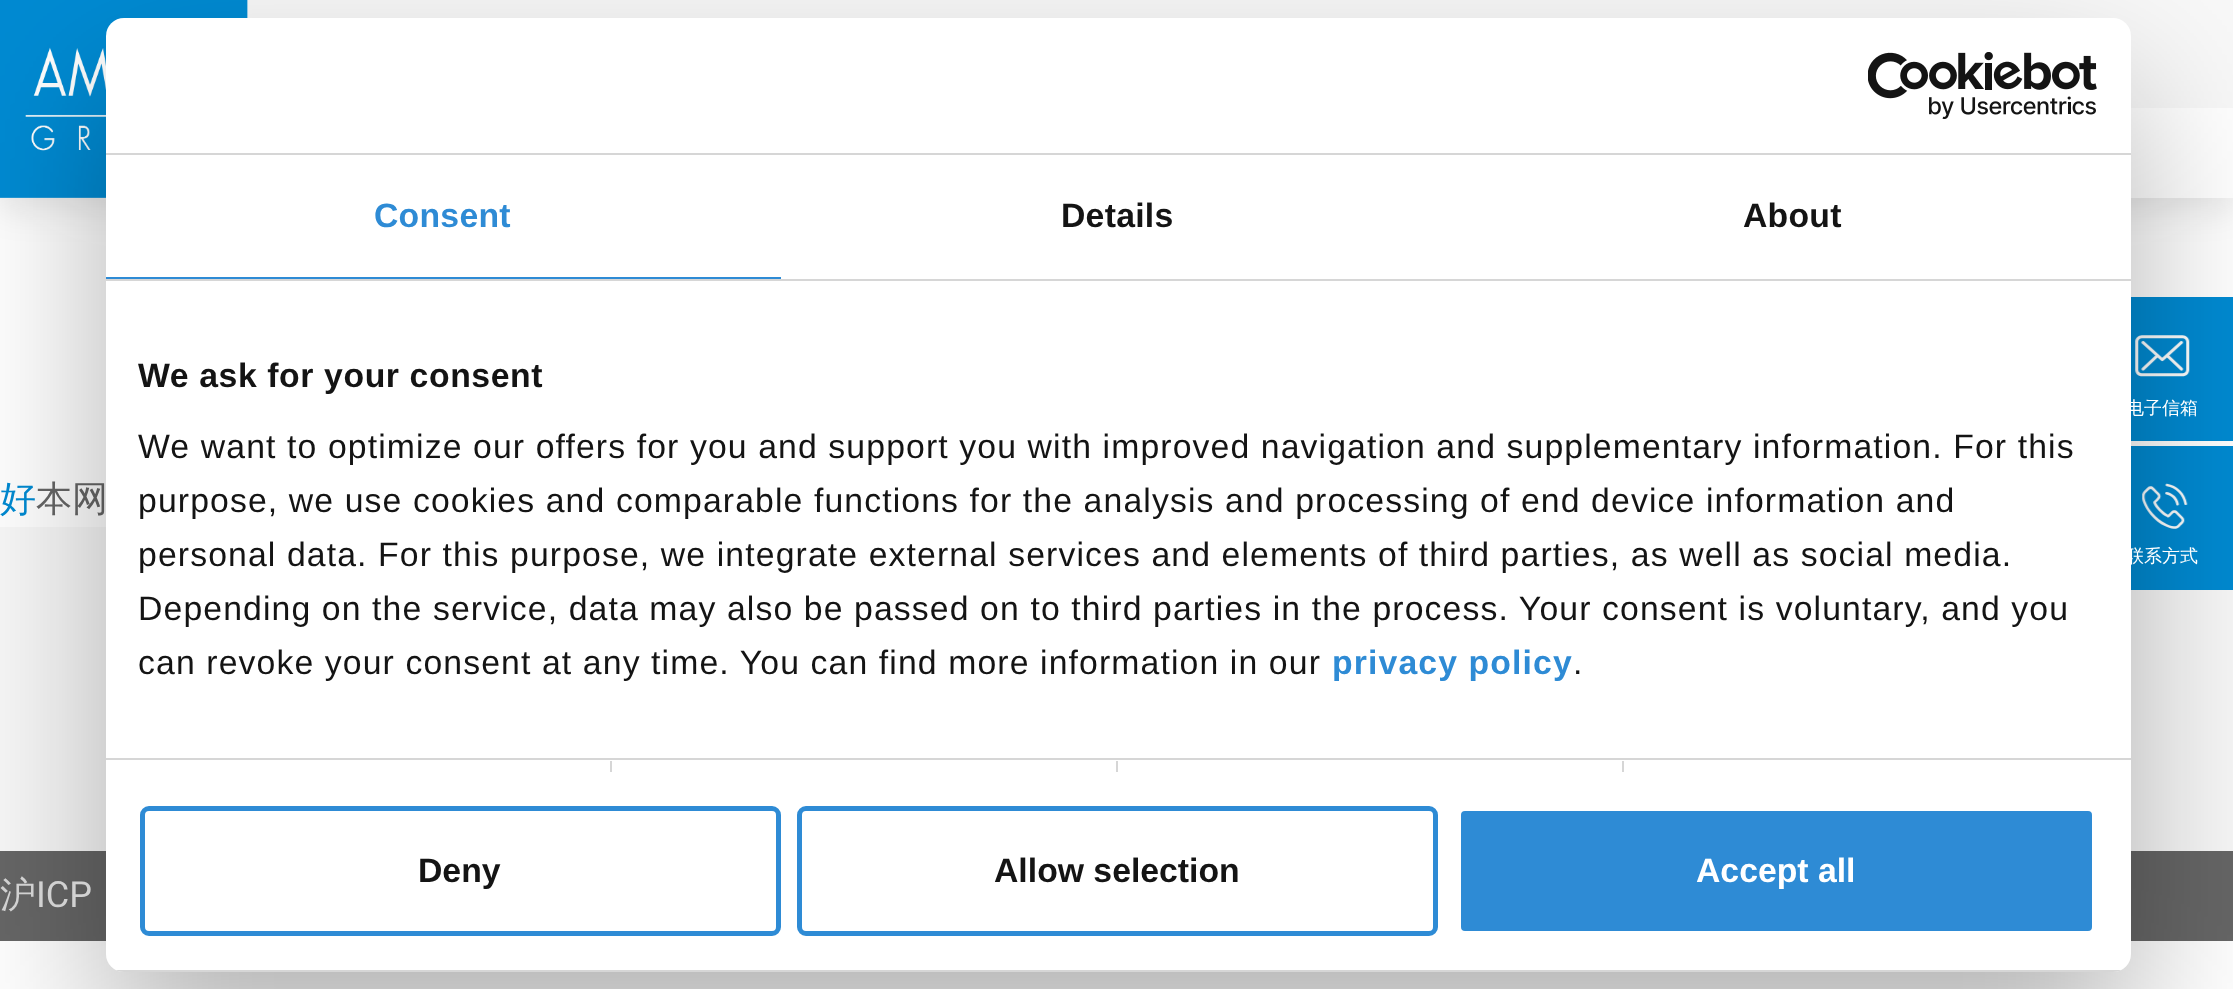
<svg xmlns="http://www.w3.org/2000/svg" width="2233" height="989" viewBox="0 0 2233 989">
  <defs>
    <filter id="blur1" x="-50%" y="-200%" width="200%" height="500%"><feGaussianBlur stdDeviation="17"/></filter>
    <filter id="blur2" x="-50%" y="-200%" width="200%" height="500%"><feGaussianBlur stdDeviation="76.5"/></filter>
    <clipPath id="clip1"><rect x="106" y="18" width="2025" height="954" rx="18"/></clipPath>
  </defs>
  <rect width="100%" height="100%" fill="#ffffff"/>
  <rect x="0" y="11" width="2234" height="198" fill="#000000" fill-opacity="0.1" filter="url(#blur1)"/>
  <rect x="0" y="0" width="2233" height="198" fill="#f8f8f8"/>
  <image x="0" y="0" width="248" height="198" href="img1.png"/>
  <rect x="2131" y="108" width="102" height="90" fill="#ffffff"/>
  <text x="0" y="511" font-family="WenQuanYi Zen Hei" font-size="36" font-weight="500" fill="#008ad2">好</text>
  <text x="36" y="511" font-family="WenQuanYi Zen Hei" font-size="36" font-weight="500" fill="#666666">本网</text>
  <rect x="2131" y="297" width="102" height="144" fill="#008ad2"/>
  <image x="2135" y="335" width="55" height="42" href="img3.png"/>
  <rect x="0" y="527" width="2233" height="324" fill="#f8f8f8"/>
  <rect x="2131" y="446" width="102" height="144" fill="#008ad2"/>
  <image x="2142" y="483" width="46" height="46" href="img4.png"/>
  <rect x="0" y="851" width="2233" height="90" fill="#666666"/>
  <rect x="106" y="90" width="2025" height="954" rx="18" fill="#000000" fill-opacity="0.3" filter="url(#blur2)"/>
  <rect x="106" y="18" width="2025" height="954" rx="18" fill="#ffffff"/>
  <rect x="106" y="153" width="2025" height="2" fill="#d6d6d6"/>
  <image x="1868" y="52" width="229" height="67" href="img2.png"/>
  <rect x="106" y="279" width="2025" height="2" fill="#d6d6d6"/>
  <rect x="106" y="277" width="675" height="2" fill="#2e8bd5"/>
  <text x="374" y="227" font-family="Liberation Sans" font-size="33.75" font-weight="bold" letter-spacing="0.25" fill="#2e8bd5">Consent</text>
  <text x="1061" y="227" font-family="Liberation Sans" font-size="33.75" font-weight="bold" letter-spacing="0.25" fill="#141414">Details</text>
  <text x="1743" y="227" font-family="Liberation Sans" font-size="33.75" font-weight="bold" letter-spacing="0.25" fill="#141414">About</text>
  <rect x="106" y="758" width="2025" height="2" fill="#d6d6d6"/>
  <text x="138" y="387" font-family="Liberation Sans" font-size="33.75" font-weight="bold" letter-spacing="0.6" fill="#141414">We ask for your consent</text>
  <text x="138" y="458" font-family="Liberation Sans" font-size="33.75" letter-spacing="1.12" fill="#141414">We want to optimize our offers for you and support you with improved navigation and supplementary information. For this</text>
  <text x="138" y="512" font-family="Liberation Sans" font-size="33.75" letter-spacing="1.12" fill="#141414">purpose, we use cookies and comparable functions for the analysis and processing of end device information and</text>
  <text x="138" y="566" font-family="Liberation Sans" font-size="33.75" letter-spacing="1.12" fill="#141414">personal data. For this purpose, we integrate external services and elements of third parties, as well as social media.</text>
  <text x="138" y="620" font-family="Liberation Sans" font-size="33.75" letter-spacing="1.12" fill="#141414">Depending on the service, data may also be passed on to third parties in the process. Your consent is voluntary, and you</text>
  <text x="138" y="674" font-family="Liberation Sans" font-size="33.75" letter-spacing="1.12" fill="#141414">can revoke your consent at any time. You can find more information in our</text>
  <text x="1332" y="674" font-family="Liberation Sans" font-size="33.75" font-weight="bold" letter-spacing="1.12" fill="#2e8bd5">privacy policy</text>
  <text x="1573" y="674" font-family="Liberation Sans" font-size="33.75" letter-spacing="1.12" fill="#141414">.</text>
  <rect x="610" y="761" width="2" height="11" fill="#d6d6d6"/>
  <rect x="1116" y="761" width="2" height="11" fill="#d6d6d6"/>
  <rect x="1622" y="761" width="2" height="11" fill="#d6d6d6"/>
  <g clip-path="url(#clip1)">
    <rect x="116" y="970" width="2005" height="2" fill="#d6d6d6"/>
  </g>
  <rect x="142.5" y="808.5" width="636" height="125" rx="6.5" fill="none" stroke="#2e8bd5" stroke-width="5"/>
  <text x="418" y="882" font-family="Liberation Sans" font-size="33.75" font-weight="bold" fill="#141414">Deny</text>
  <rect x="799.5" y="808.5" width="636" height="125" rx="6.5" fill="none" stroke="#2e8bd5" stroke-width="5"/>
  <text x="994" y="882" font-family="Liberation Sans" font-size="33.75" font-weight="bold" fill="#141414">Allow selection</text>
  <rect x="1458.5" y="808.5" width="636" height="125" rx="6.5" fill="#2e8bd5" stroke="#ffffff" stroke-width="5"/>
  <text x="1696" y="882" font-family="Liberation Sans" font-size="33.75" font-weight="bold" fill="#ffffff">Accept all</text>
  <text x="2126" y="414" font-family="WenQuanYi Zen Hei" font-size="18" font-weight="500" fill="#ffffff">电子信箱</text>
  <text x="2126" y="562" font-family="WenQuanYi Zen Hei" font-size="18" font-weight="500" fill="#ffffff">联系方式</text>
  <text x="0" y="907" font-family="WenQuanYi Zen Hei" font-size="36" font-weight="500" fill="#d1d1d1">沪</text>
  <text x="36" y="907" font-family="Heebo" font-size="36" fill="#d1d1d1">ICP</text>
</svg>
